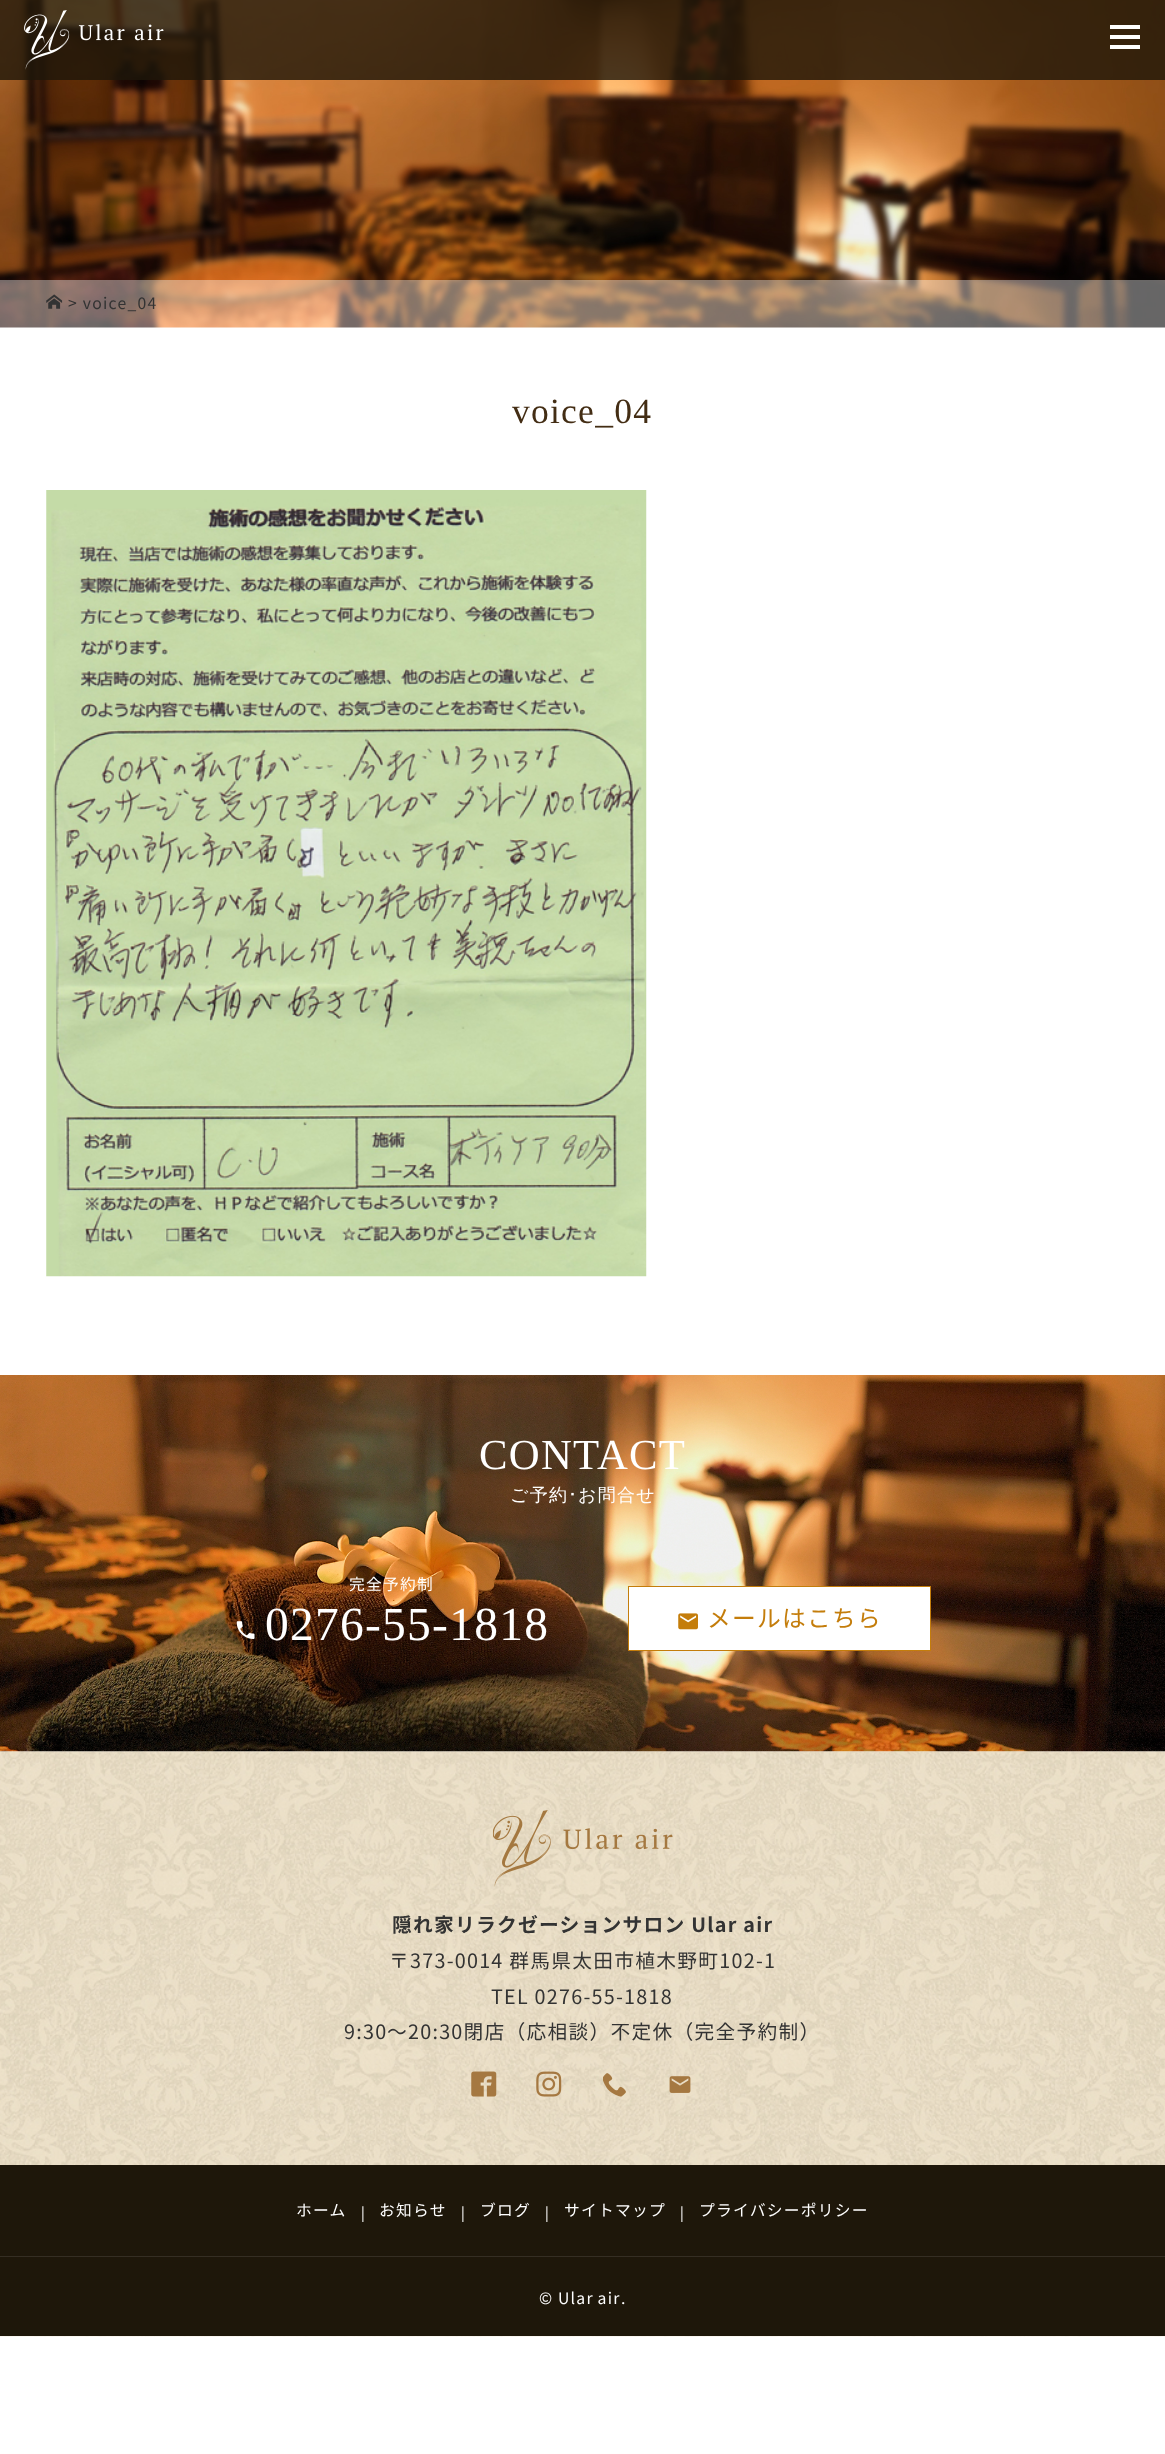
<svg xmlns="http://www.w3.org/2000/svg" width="1165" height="2454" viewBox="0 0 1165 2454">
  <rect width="100%" height="100%" fill="#ffffff"/>
  <image x="0" y="0" width="1165" height="328" href="img2.png"/>
  <rect x="0" y="0" width="1165" height="80" fill="#1e170a" fill-opacity="0.8"/>
  <rect x="1110" y="25" width="30" height="4" fill="#ffffff"/>
  <rect x="1110" y="35" width="30" height="4" fill="#ffffff"/>
  <rect x="1110" y="45" width="30" height="4" fill="#ffffff"/>
  <image x="24" y="10" width="140" height="60" href="img1.png"/>
  <rect x="0" y="280" width="1165" height="48" fill="#ffffff" fill-opacity="0.4"/>
  <image x="46" y="294" width="17" height="15" href="img3.png"/>
  <text x="68" y="309" font-family="Noto Sans JP" font-size="15.75" letter-spacing="1.25" fill="#333333">&gt; voice_04</text>
  <text x="512" y="423" font-family="Liberation Serif" font-size="35.5" letter-spacing="1.25" fill="#432d14">voice_04</text>
  <image x="46" y="490" width="601" height="787" href="img4.png"/>
  <image x="0" y="1751" width="1165" height="586" href="img8.png"/>
  <image x="0" y="1375" width="1165" height="377" href="img5.png"/>
  <text x="479" y="1469" font-family="Liberation Serif" font-size="42.75" letter-spacing="1.25" fill="#ffffff">CONTACT</text>
  <text x="510" y="1501" font-family="WenQuanYi Zen Hei" font-size="18" font-weight="500" letter-spacing="1.25" fill="#ffffff">ご予約</text>
  <text x="568" y="1501" font-family="IPAPGothic" font-size="18" letter-spacing="1.25" fill="#ffffff">･</text>
  <text x="578" y="1501" font-family="WenQuanYi Zen Hei" font-size="18" font-weight="500" letter-spacing="1.25" fill="#ffffff">お問合せ</text>
  <text x="349" y="1590" font-family="Noto Sans JP" font-size="15.75" letter-spacing="1.25" fill="#ffffff">完全予約制</text>
  <image x="236" y="1621" width="19" height="18" href="img6.png"/>
  <text x="265" y="1640" font-family="Liberation Serif" font-size="47.5" letter-spacing="1.25" fill="#ffffff">0276-55-1818</text>
  <rect x="628.5" y="1586.5" width="302" height="64" fill="#ffffff" stroke="#c47d0b"/>
  <image x="678" y="1613" width="20" height="17" href="img7.png"/>
  <text x="707" y="1627" font-family="Noto Sans JP" font-size="23.75" letter-spacing="1.25" fill="#c47d0b">メールはこちら</text>
  <image x="493" y="1810" width="180" height="77" href="img9.png"/>
  <text x="392" y="1932" font-family="Noto Sans JP" font-size="19.75" font-weight="bold" letter-spacing="1.25" fill="#333333">隠れ家リラクゼーションサロン Ular air</text>
  <text x="389" y="1968" font-family="Noto Sans JP" font-size="19.75" letter-spacing="1.25" fill="#333333">〒373-0014 群馬県太田市植木野町102-1</text>
  <text x="491" y="2004" font-family="Noto Sans JP" font-size="19.75" letter-spacing="1.25" fill="#333333">TEL 0276-55-1818</text>
  <text x="344" y="2039" font-family="Noto Sans JP" font-size="19.75" letter-spacing="1.25" fill="#333333">9:30</text>
  <text x="387" y="2039" font-family="'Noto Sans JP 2'" font-size="19.75" letter-spacing="1.25" fill="#333333">～</text>
  <text x="408" y="2039" font-family="Noto Sans JP" font-size="19.75" letter-spacing="1.25" fill="#333333">20:30閉店（応相談）不定休（完全予約制）</text>
  <image x="471" y="2071" width="26" height="26" href="img10.png"/>
  <image x="536" y="2071" width="26" height="26" href="img11.png"/>
  <image x="603" y="2073" width="23" height="24" href="img12.png"/>
  <image x="669" y="2076" width="22" height="17" href="img13.png"/>
  <rect x="0" y="2165" width="1165" height="91" fill="#1e170a"/>
  <text x="296" y="2216" font-family="Noto Sans JP" font-size="15.75" letter-spacing="1.25" fill="#ffffff">ホーム</text>
  <text x="355" y="2218" font-family="WenQuanYi Zen Hei" font-size="15.75" font-weight="500" letter-spacing="1.25" fill="#ffffff">｜</text>
  <text x="379" y="2216" font-family="Noto Sans JP" font-size="15.75" letter-spacing="1.25" fill="#ffffff">お知らせ</text>
  <text x="455" y="2218" font-family="WenQuanYi Zen Hei" font-size="15.75" font-weight="500" letter-spacing="1.25" fill="#ffffff">｜</text>
  <text x="480" y="2216" font-family="Noto Sans JP" font-size="15.75" letter-spacing="1.25" fill="#ffffff">ブログ</text>
  <text x="539" y="2218" font-family="WenQuanYi Zen Hei" font-size="15.75" font-weight="500" letter-spacing="1.25" fill="#ffffff">｜</text>
  <text x="564" y="2216" font-family="Noto Sans JP" font-size="15.75" letter-spacing="1.25" fill="#ffffff">サイトマップ</text>
  <text x="674" y="2218" font-family="WenQuanYi Zen Hei" font-size="15.75" font-weight="500" letter-spacing="1.25" fill="#ffffff">｜</text>
  <text x="699" y="2216" font-family="Noto Sans JP" font-size="15.75" letter-spacing="1.25" fill="#ffffff">プライバシーポリシー</text>
  <rect x="0" y="2257" width="1165" height="79" fill="#1e170a"/>
  <rect x="0" y="2256" width="1165" height="1" fill="#352e23"/>
  <text x="539" y="2304" font-family="Noto Sans JP" font-size="15.75" letter-spacing="1.25" fill="#ffffff">©</text>
  <text x="558" y="2304" word-spacing="-1" font-family="Noto Sans JP" font-size="15.75" letter-spacing="1.25" fill="#ffffff">Ular air</text>
  <text x="621" y="2304" font-family="Noto Sans JP" font-size="15.75" letter-spacing="1.25" fill="#ffffff">.</text>
</svg>
